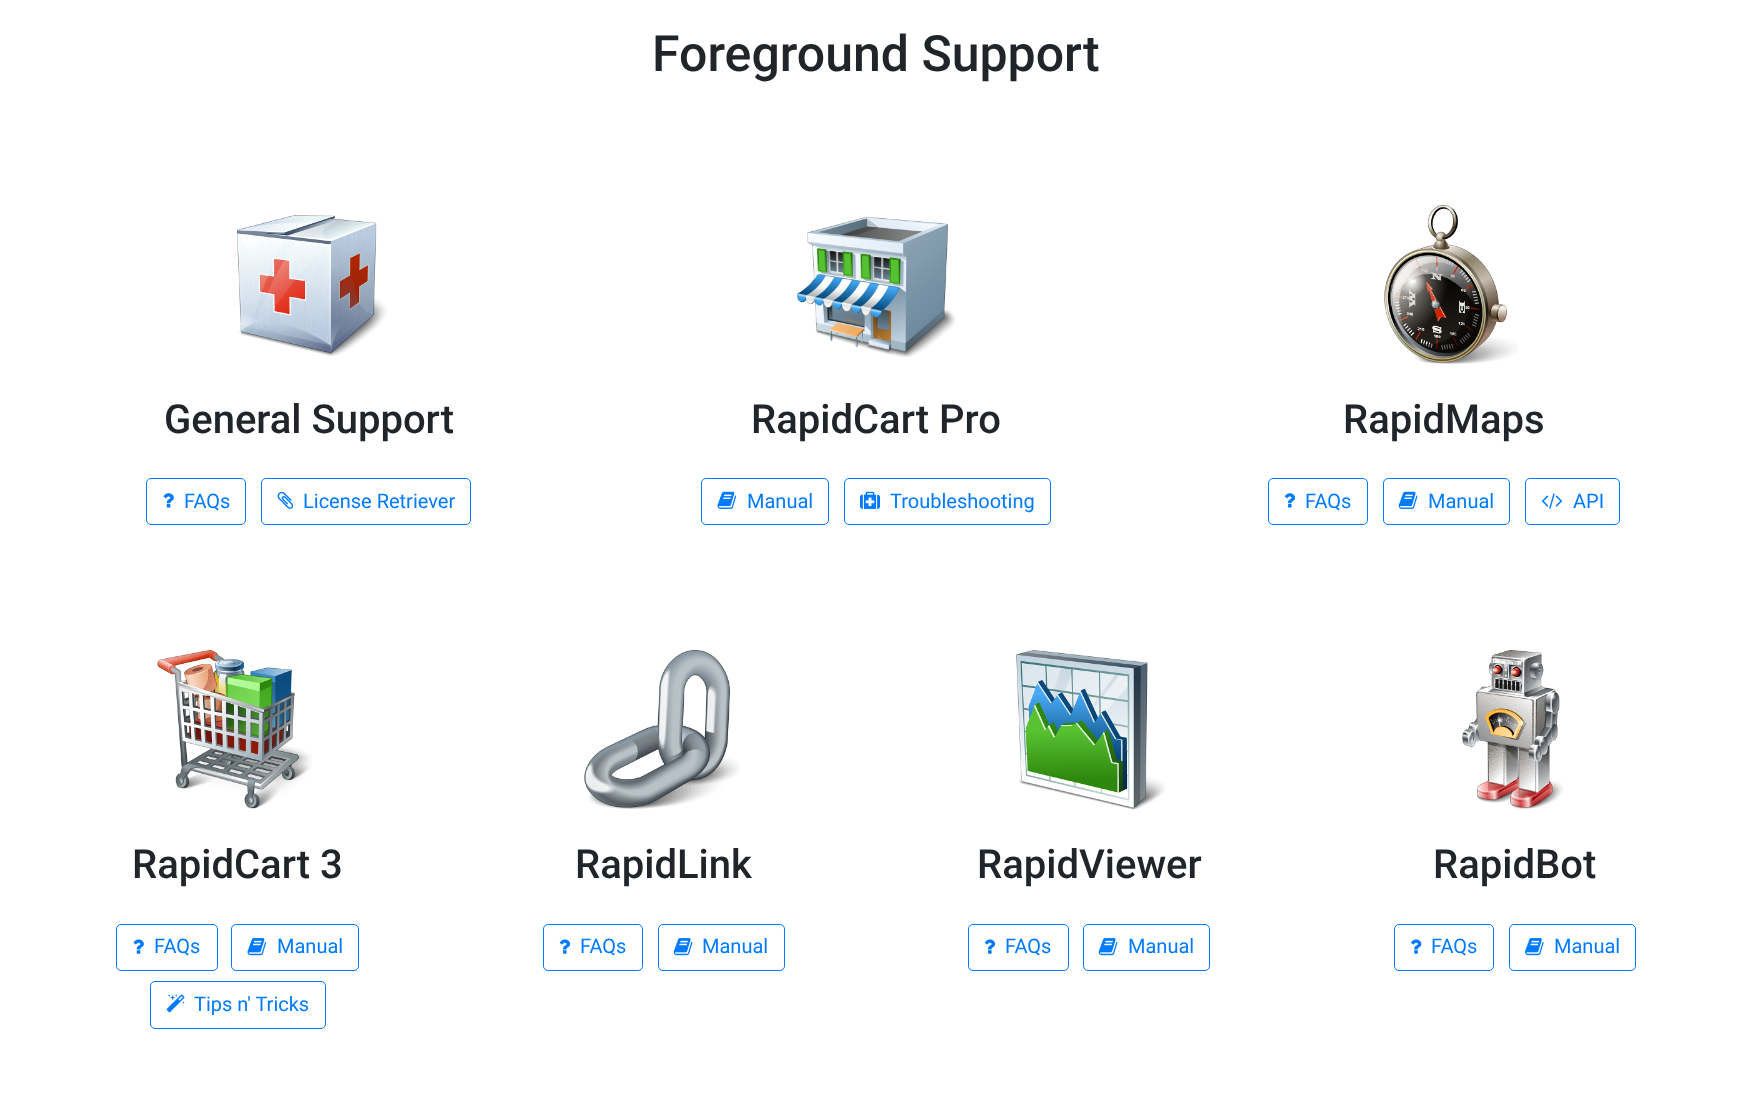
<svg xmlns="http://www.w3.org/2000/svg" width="1752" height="1110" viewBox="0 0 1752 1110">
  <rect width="100%" height="100%" fill="#ffffff"/>
  <text x="652" y="71" font-family="Roboto" font-size="50" font-weight="500" fill="#212529">Foreground Support</text>
  <image x="237" y="215" width="150" height="141" href="img1.png"/>
  <text x="164" y="433" font-family="Roboto" font-size="40" font-weight="500" fill="#212529">General Support</text>
  <rect x="146.5" y="478.5" width="99" height="46" rx="4.5" fill="none" stroke="#007bff"/>
  <image x="163" y="493" width="11" height="15" href="img2.png"/>
  <text x="184" y="508" font-family="Roboto" font-size="20" fill="#007bff">FAQs</text>
  <rect x="261.5" y="478.5" width="209" height="46" rx="4.5" fill="none" stroke="#007bff"/>
  <image x="277" y="491" width="17" height="18" href="img3.png"/>
  <text x="303" y="508" font-family="Roboto" font-size="20" fill="#007bff">License Retriever</text>
  <image x="797" y="217" width="159" height="140" href="img4.png"/>
  <text x="751" y="433" font-family="Roboto" font-size="40" font-weight="500" fill="#212529">RapidCart Pro</text>
  <rect x="701.5" y="478.5" width="127" height="46" rx="4.5" fill="none" stroke="#007bff"/>
  <image x="717" y="491" width="20" height="18" href="img5.png"/>
  <text x="747" y="508" font-family="Roboto" font-size="20" fill="#007bff">Manual</text>
  <rect x="844.5" y="478.5" width="206" height="46" rx="4.5" fill="none" stroke="#007bff"/>
  <image x="860" y="491" width="20" height="18" href="img6.png"/>
  <text x="890" y="508" font-family="Roboto" font-size="20" fill="#007bff">Troubleshooting</text>
  <image x="1384" y="205" width="134" height="159" href="img7.png"/>
  <text x="1343" y="433" font-family="Roboto" font-size="40" font-weight="500" fill="#212529">RapidMaps</text>
  <rect x="1268.5" y="478.5" width="99" height="46" rx="4.5" fill="none" stroke="#007bff"/>
  <image x="1284" y="493" width="12" height="15" href="img8.png"/>
  <text x="1305" y="508" font-family="Roboto" font-size="20" fill="#007bff">FAQs</text>
  <rect x="1383.5" y="478.5" width="126" height="46" rx="4.5" fill="none" stroke="#007bff"/>
  <image x="1398" y="491" width="20" height="18" href="img9.png"/>
  <text x="1428" y="508" font-family="Roboto" font-size="20" fill="#007bff">Manual</text>
  <rect x="1525.5" y="478.5" width="94" height="46" rx="4.5" fill="none" stroke="#007bff"/>
  <image x="1541" y="493" width="22" height="16" href="img10.png"/>
  <text x="1573" y="508" font-family="Roboto" font-size="20" fill="#007bff">API</text>
  <image x="157" y="650" width="155" height="159" href="img11.png"/>
  <text x="132" y="878" font-family="Roboto" font-size="40" font-weight="500" fill="#212529">RapidCart 3</text>
  <rect x="116.5" y="924.5" width="101" height="46" rx="4.5" fill="none" stroke="#007bff"/>
  <image x="133" y="939" width="11" height="15" href="img12.png"/>
  <text x="154" y="953" font-family="Roboto" font-size="20" fill="#007bff">FAQs</text>
  <rect x="231.5" y="924.5" width="127" height="46" rx="4.5" fill="none" stroke="#007bff"/>
  <image x="247" y="938" width="20" height="18" href="img13.png"/>
  <text x="277" y="953" font-family="Roboto" font-size="20" fill="#007bff">Manual</text>
  <rect x="150.5" y="981.5" width="175" height="47" rx="4.5" fill="none" stroke="#007bff"/>
  <image x="166" y="994" width="19" height="19" href="img14.png"/>
  <text x="194" y="1011" font-family="Roboto" font-size="20" fill="#007bff">Tips n' Tricks</text>
  <image x="584" y="650" width="156" height="159" href="img15.png"/>
  <text x="575" y="878" font-family="Roboto" font-size="40" font-weight="500" fill="#212529">RapidLink</text>
  <rect x="543.5" y="924.5" width="99" height="46" rx="4.5" fill="none" stroke="#007bff"/>
  <image x="559" y="939" width="12" height="15" href="img16.png"/>
  <text x="580" y="953" font-family="Roboto" font-size="20" fill="#007bff">FAQs</text>
  <rect x="658.5" y="924.5" width="126" height="46" rx="4.5" fill="none" stroke="#007bff"/>
  <image x="673" y="938" width="20" height="18" href="img17.png"/>
  <text x="702" y="953" font-family="Roboto" font-size="20" fill="#007bff">Manual</text>
  <image x="1016" y="650" width="149" height="160" href="img18.png"/>
  <text x="977" y="878" font-family="Roboto" font-size="40" font-weight="500" fill="#212529">RapidViewer</text>
  <rect x="968.5" y="924.5" width="100" height="46" rx="4.5" fill="none" stroke="#007bff"/>
  <image x="984" y="939" width="12" height="15" href="img16.png"/>
  <text x="1005" y="953" font-family="Roboto" font-size="20" fill="#007bff">FAQs</text>
  <rect x="1083.5" y="924.5" width="126" height="46" rx="4.5" fill="none" stroke="#007bff"/>
  <image x="1098" y="938" width="20" height="18" href="img17.png"/>
  <text x="1128" y="953" font-family="Roboto" font-size="20" fill="#007bff">Manual</text>
  <image x="1462" y="650" width="101" height="159" href="img19.png"/>
  <text x="1433" y="878" font-family="Roboto" font-size="40" font-weight="500" fill="#212529">RapidBot</text>
  <rect x="1394.5" y="924.5" width="99" height="46" rx="4.5" fill="none" stroke="#007bff"/>
  <image x="1411" y="939" width="11" height="15" href="img20.png"/>
  <text x="1431" y="953" font-family="Roboto" font-size="20" fill="#007bff">FAQs</text>
  <rect x="1509.5" y="924.5" width="126" height="46" rx="4.5" fill="none" stroke="#007bff"/>
  <image x="1525" y="938" width="19" height="18" href="img21.png"/>
  <text x="1554" y="953" font-family="Roboto" font-size="20" fill="#007bff">Manual</text>
</svg>
